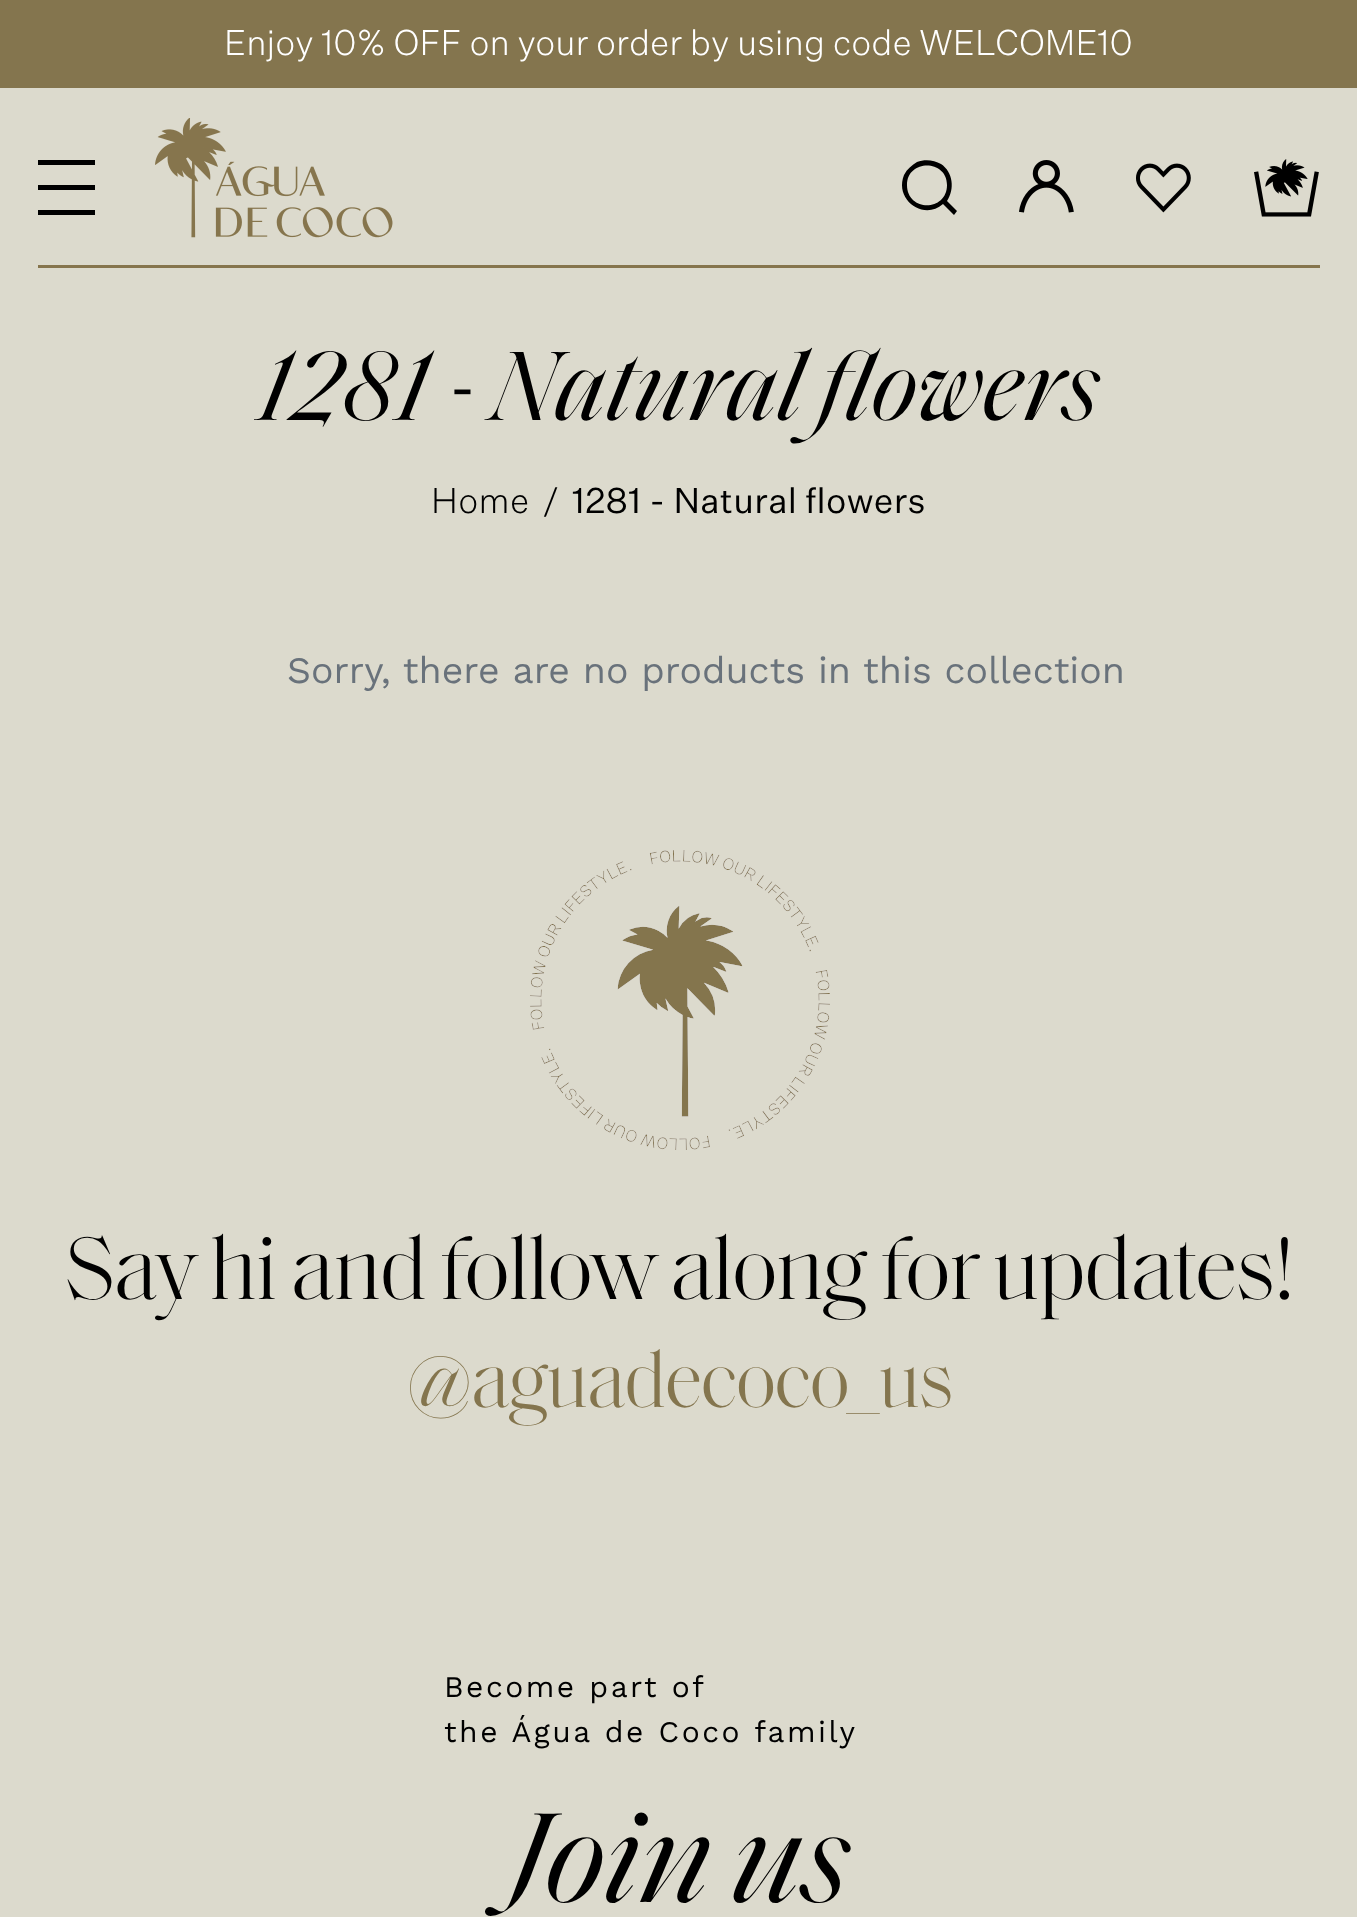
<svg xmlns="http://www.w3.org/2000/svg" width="1357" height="1917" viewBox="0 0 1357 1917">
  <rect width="100%" height="100%" fill="#dcdacd"/>
  <rect x="0" y="0" width="1357" height="88" fill="#84754e"/>
  <text x="224" y="55" font-family="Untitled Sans" font-size="35" font-weight="300" fill="#ffffff">Enjoy 10% OFF on your order by using code WELCOME10</text>
  <path d="M38 210H95V215H38ZM38 185H95V190H38ZM38 160H95V165H38Z" fill="#000000"/>
  <image x="155" y="118" width="238" height="120" href="img1.png"/>
  <path d="M954 215L943 204C924 221 894 200 904 175C907 169 912 165 917 162C925 159 934 160 941 164C953 172 955 189 947 201L957 211ZM947 185C947 159 907 159 907 185C907 212 947 212 947 185Z" fill="#000000"/>
  <image x="1019" y="160" width="55" height="53" href="img2.png"/>
  <image x="1136" y="163" width="55" height="50" href="img3.png"/>
  <image x="1254" y="159" width="65" height="58" href="img4.png"/>
  <rect x="38" y="265" width="1282" height="3" fill="#86754d"/>
  <text x="258" y="420" font-family="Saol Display" font-size="100" font-style="italic" fill="#000000">1281 - Natural flowers</text>
  <text x="431" y="513" font-family="Untitled Sans" font-size="35" font-weight="300" letter-spacing="0.35" fill="#000000">Home</text>
  <text x="542" y="513" font-family="Untitled Sans" font-size="35" font-weight="300" letter-spacing="0.35" fill="#000000">/</text>
  <text x="572" y="513" font-family="Untitled Sans" font-size="35" letter-spacing="0.35" fill="#000000">1281 - Natural flowers</text>
  <text x="287" y="683" font-family="Work Sans" font-size="37.5" fill="#69727b">Sorry, there are no products in this collection</text>
  <image x="530" y="850" width="300" height="300" href="img5.png"/>
  <image x="617" y="906" width="126" height="211" href="img6.png"/>
  <text x="65" y="1299" font-family="Saol Display" font-size="90" font-weight="300" letter-spacing="-2.5" fill="#000000">Say hi and follow along for updates!</text>
  <text x="406" y="1407" font-family="Saol Display" font-size="80" font-weight="300" letter-spacing="-2.5" fill="#84754e">@aguadecoco_us</text>
  <text x="444" y="1697" font-family="Work Sans" font-size="30" letter-spacing="2.5" fill="#000000">Become part of</text>
  <text x="444" y="1742" font-family="Work Sans" font-size="30" letter-spacing="2.5" fill="#000000">the Água de Coco family</text>
  <text x="506" y="1902" font-family="Saol Display" font-size="130" font-style="italic" fill="#000000">Join us</text>
</svg>
